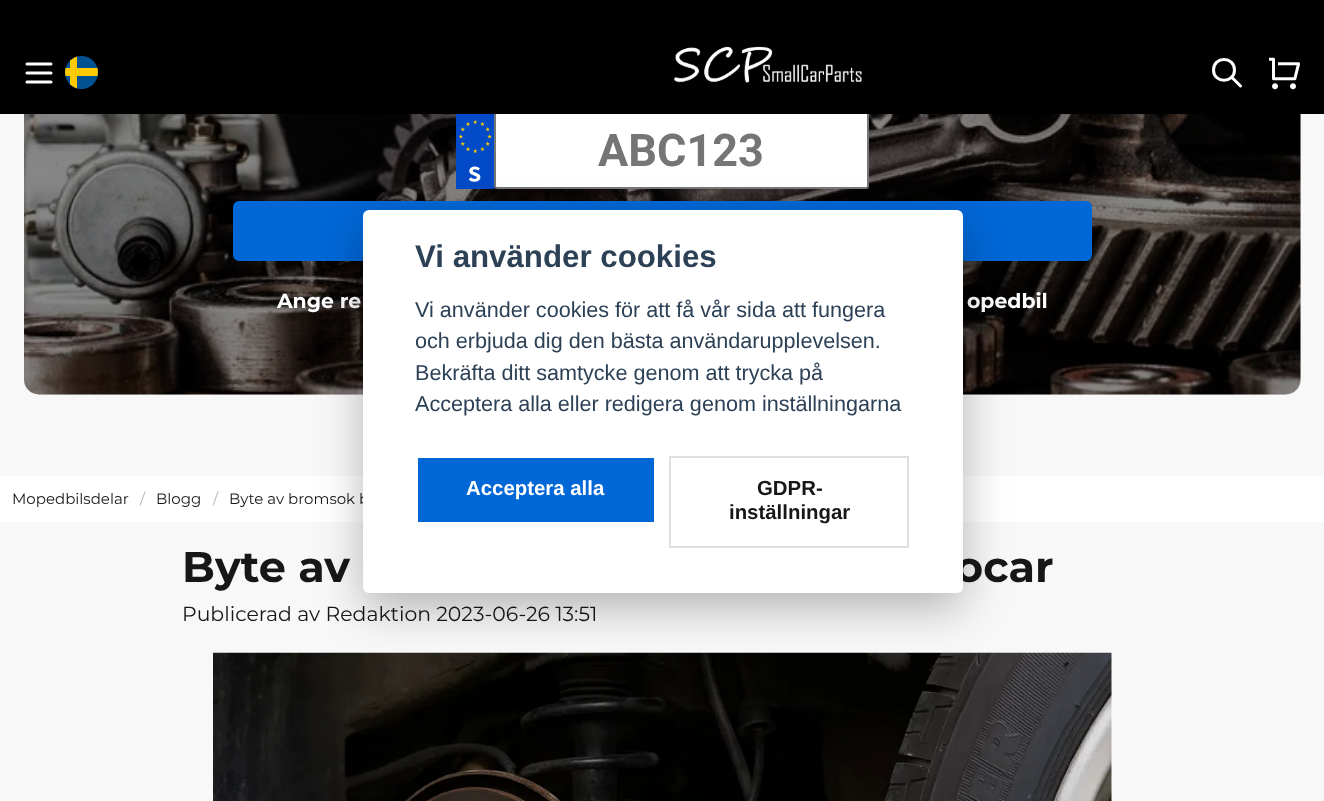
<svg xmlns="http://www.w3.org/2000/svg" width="1324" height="801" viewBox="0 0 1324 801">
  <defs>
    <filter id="blur1" x="-50%" y="-200%" width="200%" height="500%"><feGaussianBlur stdDeviation="22.5"/></filter>
  </defs>
  <rect width="100%" height="100%" fill="#f9f8f8"/>
  <rect x="24" y="-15" width="1277" height="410" rx="15" fill="#e6e6e6"/>
  <image x="24" y="114" width="1277" height="281" href="img3.png"/>
  <rect x="495" y="112" width="373" height="76" rx="2" fill="#ffffff" stroke="#767676" stroke-width="2"/>
  <rect x="0" y="0" width="1324" height="114" fill="#000000"/>
  <path d="M27 64H51M27 73H51M27 82H51" fill="none" stroke="#ffffff" stroke-width="3" stroke-linecap="round" stroke-linejoin="round"/>
  <circle cx="81.5" cy="72.5" r="16.5" fill="#005293"/>
  <path d="M77 56.5C74.5 57.5 72 59 70 60.5V68H65.5C65 70.5 65 73.5 65.5 76H70V84.5C72 86 74.5 87.5 77 88.5V76H97.5C98 73.5 98 70.5 97.5 68H77Z" fill="#fecb00"/>
  <image x="674" y="46" width="188" height="37" href="img1.png"/>
  <path d="M1240.5 86L1231.5 77M1234.5 70C1234.5 83.5 1213.5 83.5 1213.5 70C1213.5 56 1234.5 56 1234.5 70Z" fill="none" stroke="#ffffff" stroke-width="3" stroke-linecap="round" stroke-linejoin="round"/>
  <image x="1269" y="57" width="32" height="33" href="img2.png"/>
  <image x="456" y="114" width="38" height="75" href="img4.png"/>
  <text x="598" y="166" font-family="Roboto" font-size="45" font-weight="bold" fill="#757575">ABC123</text>
  <rect x="234" y="202" width="857" height="58" rx="5" fill="#0067d7" stroke="#0067d7" stroke-width="2"/>
  <text x="277" y="308" font-family="Montserrat" font-size="20.4" font-weight="bold" fill="#ffffff">Ange re</text>
  <text x="967" y="308" font-family="Montserrat" font-size="20.4" font-weight="bold" fill="#ffffff">opedbil</text>
  <rect x="0" y="476" width="1324" height="46" fill="#ffffff"/>
  <text x="12" y="504" font-family="Montserrat" font-size="15" fill="#171717">Mopedbilsdelar</text>
  <text x="140" y="504" font-family="Montserrat" font-size="15" fill="#b5b5b5">/</text>
  <text x="156" y="504" font-family="Montserrat" font-size="15" fill="#171717">Blogg</text>
  <text x="213" y="504" font-family="Montserrat" font-size="15" fill="#b5b5b5">/</text>
  <text x="229" y="504" font-family="Montserrat" font-size="15" fill="#171717">Byte av bromsok b</text>
  <text x="182" y="582" font-family="Montserrat" font-size="43" font-weight="bold" fill="#171717">Byte av</text>
  <text x="955" y="582" font-family="Montserrat" font-size="43" font-weight="bold" fill="#171717">ocar</text>
  <text x="182" y="621" font-family="Montserrat" font-size="20.4" fill="#171717">Publicerad av Redaktion 2023-06-26 13:51</text>
  <image x="213" y="652" width="899" height="149" href="img5.png"/>
  <rect x="363" y="225" width="600" height="383" rx="6" fill="#020203" fill-opacity="0.28" filter="url(#blur1)"/>
  <rect x="363" y="210" width="600" height="383" rx="6" fill="#ffffff"/>
  <text x="415" y="267" font-family="Liberation Sans" font-size="31.25" font-weight="bold" fill="#2d4156">Vi använder cookies</text>
  <text x="415" y="317" font-family="Liberation Sans" font-size="21.6" fill="#2d4156">Vi använder cookies för att få vår sida att fungera</text>
  <text x="415" y="348" font-family="Liberation Sans" font-size="21.6" fill="#2d4156">och erbjuda dig den bästa användarupplevelsen.</text>
  <text x="415" y="380" font-family="Liberation Sans" font-size="21.6" fill="#2d4156">Bekräfta ditt samtycke genom att trycka på</text>
  <text x="415" y="411" font-family="Liberation Sans" font-size="21.6" fill="#2d4156">Acceptera alla eller redigera genom inställningarna</text>
  <rect x="418" y="458" width="236" height="64" fill="#0067d7"/>
  <text x="466" y="495" font-family="Liberation Sans" font-size="20.4" font-weight="bold" fill="#ffffff">Acceptera alla</text>
  <rect x="670" y="457" width="238" height="90" fill="none" stroke="#dfdfdf" stroke-width="2"/>
  <text x="757" y="495" font-family="Liberation Sans" font-size="20.4" font-weight="bold" fill="#171717">GDPR-</text>
  <text x="729" y="519" font-family="Liberation Sans" font-size="20.4" font-weight="bold" fill="#171717">inställningar</text>
</svg>
